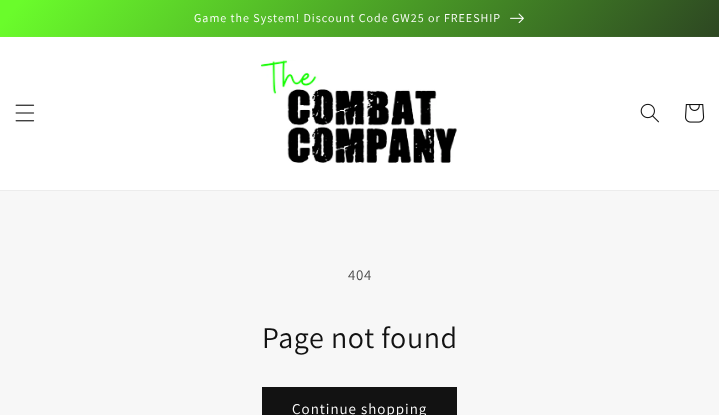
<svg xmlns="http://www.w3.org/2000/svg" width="719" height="415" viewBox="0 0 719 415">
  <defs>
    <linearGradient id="g1" gradientUnits="userSpaceOnUse" x1="673" y1="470" x2="46" y2="-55"><stop offset="0.15" stop-color="#202020"/><stop offset="0.98" stop-color="#6afc2b"/></linearGradient>
    <linearGradient id="g2" gradientUnits="userSpaceOnUse" x1="673" y1="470" x2="46" y2="-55"><stop offset="0.15" stop-color="#252525"/><stop offset="0.98" stop-color="#6dfc2f"/></linearGradient>
  </defs>
  <rect width="100%" height="100%" fill="#f7f7f7"/>
  <rect x="0" y="0" width="719" height="36" fill="url(#g1)"/>
  <rect x="0" y="36" width="719" height="1" fill="url(#g2)"/>
  <text x="194" y="22" font-family="Assistant" font-size="12" letter-spacing="1" fill="#ffffff">Game the System! Discount Code GW25 or FREESHIP</text>
  <image x="510" y="13" width="14" height="10" href="img1.png"/>
  <rect x="0" y="37" width="719" height="153" fill="#ffffff"/>
  <rect x="0" y="190" width="719" height="1" fill="#ececec"/>
  <image x="15" y="104" width="20" height="18" href="img2.png"/>
  <image x="260" y="60" width="197" height="103" href="img3.png"/>
  <image x="640" y="103" width="19" height="20" href="img4.png"/>
  <image x="685" y="104" width="20" height="19" href="img5.png"/>
  <text x="348" y="280" font-family="Assistant" font-size="15" letter-spacing="0.6" fill="#4b4b4b">404</text>
  <text x="262" y="348" font-family="Assistant" font-size="30" letter-spacing="0.6" fill="#121212">Page not found</text>
  <rect x="262" y="387" width="195" height="28" fill="#121212"/>
  <text x="292" y="414" font-family="Assistant" font-size="15" letter-spacing="1" fill="#ffffff">Continue shopping</text>
</svg>
